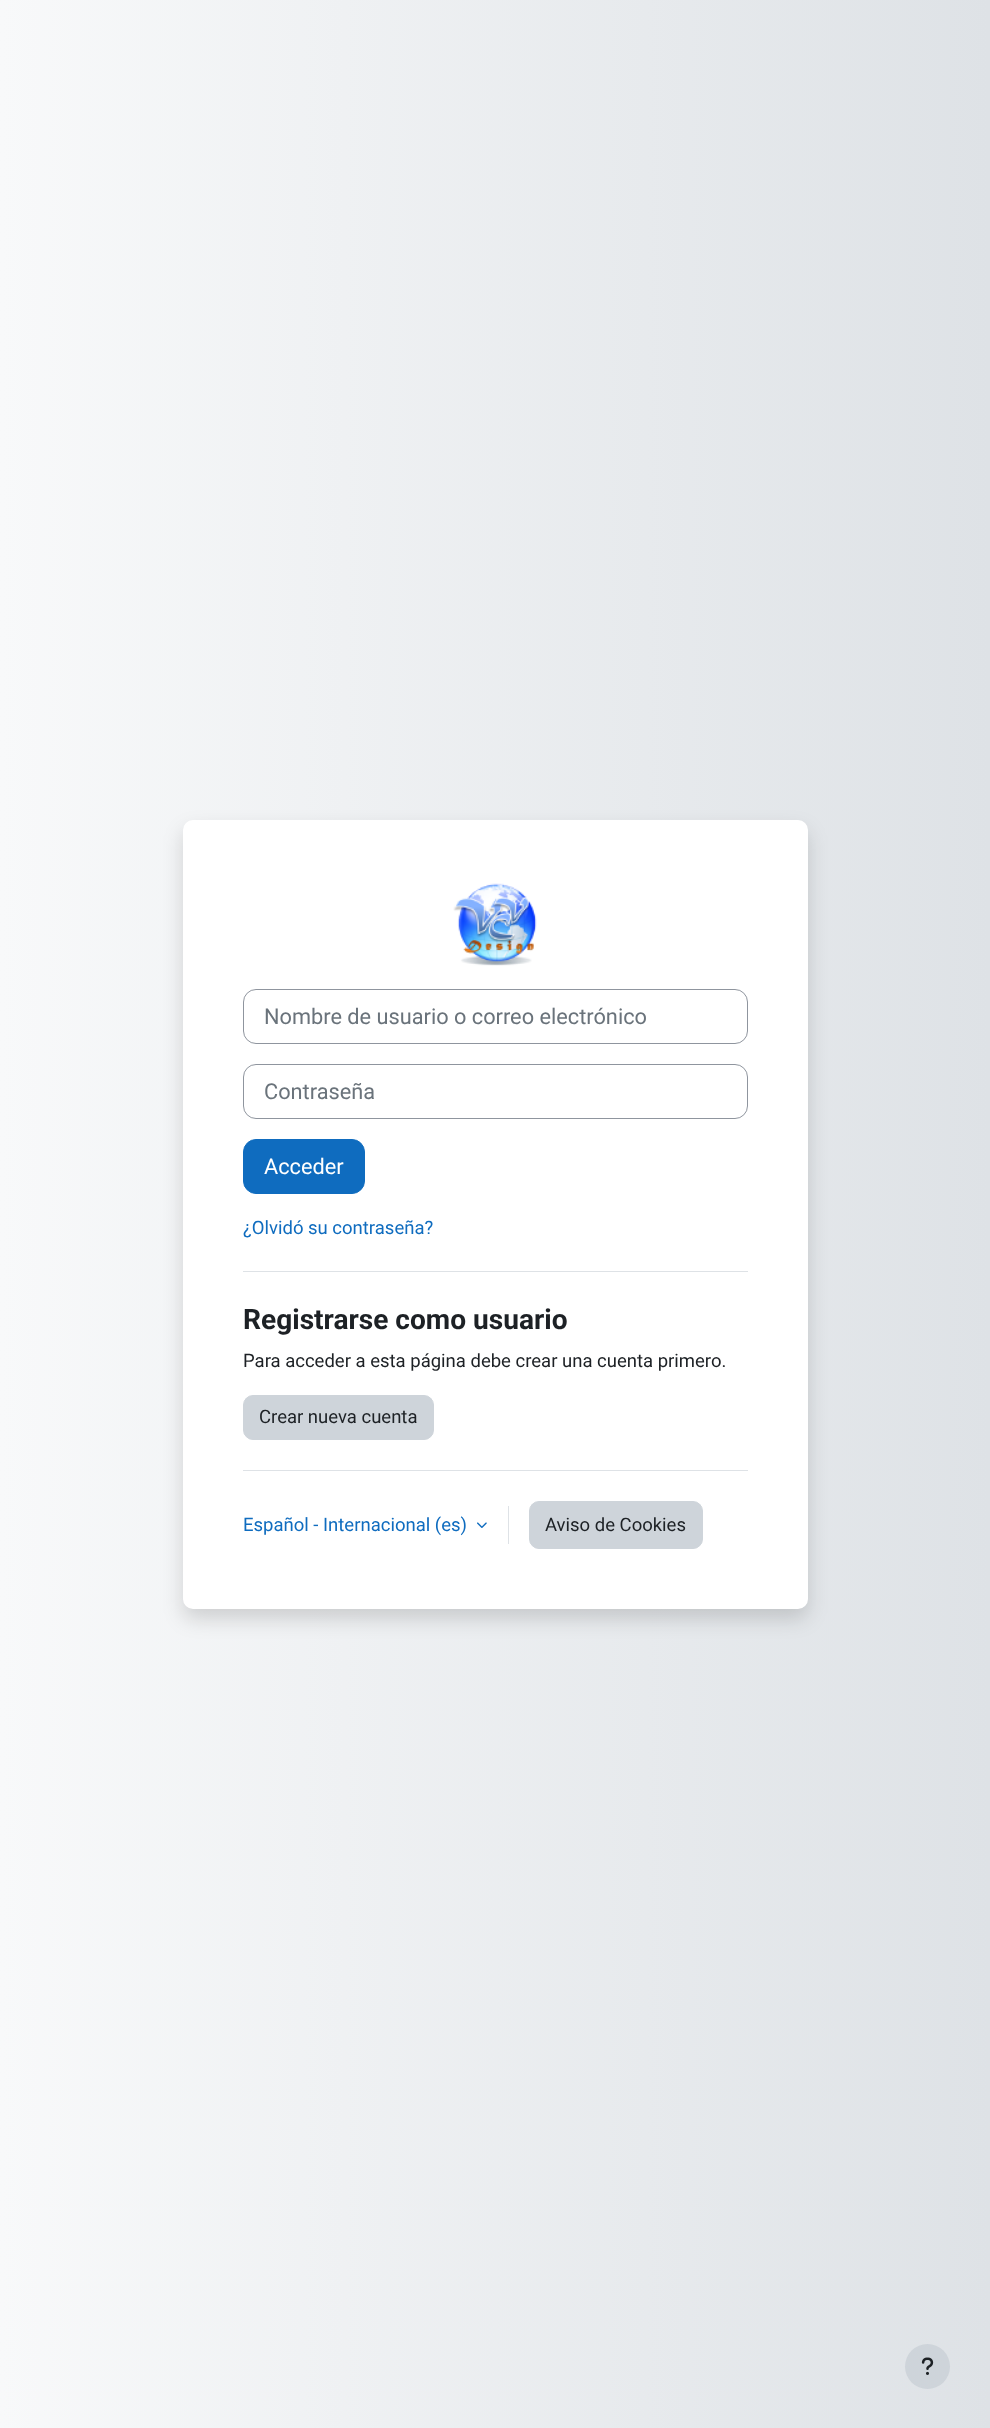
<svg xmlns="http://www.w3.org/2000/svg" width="990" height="2428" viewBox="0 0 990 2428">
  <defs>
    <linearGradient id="g1" gradientUnits="userSpaceOnUse" x1="0" y1="1214" x2="990" y2="1214"><stop offset="0" stop-color="#f8f9fa"/><stop offset="1" stop-color="#dee2e6"/></linearGradient>
    <filter id="blur1" x="-50%" y="-200%" width="200%" height="500%"><feGaussianBlur stdDeviation="10"/></filter>
  </defs>
  <rect width="100%" height="100%" fill="#ffffff"/>
  <rect x="0" y="0" width="990" height="2428" fill="url(#g1)"/>
  <rect x="183" y="830" width="625" height="789" rx="10" fill="#000000" fill-opacity="0.15" filter="url(#blur1)"/>
  <rect x="183" y="820" width="625" height="789" rx="10" fill="#ffffff"/>
  <image x="453" y="883" width="84" height="83" href="img1.png"/>
  <rect x="243.5" y="989.5" width="504" height="54" rx="12.5" fill="none" stroke="#8f959e"/>
  <text x="264" y="1024" font-family="Roboto" font-size="21.75" fill="#6a737b">Nombre de usuario o correo electrónico</text>
  <rect x="243.5" y="1064.5" width="504" height="54" rx="12.5" fill="none" stroke="#8f959e"/>
  <text x="264" y="1099" font-family="Roboto" font-size="21.75" fill="#6a737b">Contraseña</text>
  <rect x="243.5" y="1139.5" width="121" height="54" rx="12.5" fill="#0f6cbf" stroke="#0f6cbf"/>
  <text x="264" y="1174" font-family="Roboto" font-size="21.75" fill="#ffffff">Acceder</text>
  <text x="243" y="1234" font-family="Roboto" font-size="18.5" fill="#0f6cbf">¿Olvidó su contraseña?</text>
  <rect x="243" y="1271" width="505" height="1" fill="#dee2e6"/>
  <text x="243" y="1329" font-family="Roboto" font-size="28.1" font-weight="bold" fill="#1d2125">Registrarse como usuario</text>
  <text x="243" y="1367" font-family="Roboto" font-size="18.5" fill="#1d2125">Para acceder a esta página debe crear una cuenta primero.</text>
  <rect x="243.5" y="1395.5" width="190" height="44" rx="9.5" fill="#ced4da" stroke="#ced4da"/>
  <text x="259" y="1423" font-family="Roboto" font-size="18.5" fill="#1d2125">Crear nueva cuenta</text>
  <rect x="243" y="1470" width="505" height="1" fill="#dee2e6"/>
  <text x="243" y="1531" font-family="Roboto" font-size="18.5" fill="#0f6cbf">Español - Internacional (es)</text>
  <image x="477" y="1522" width="10" height="6" href="img2.png"/>
  <rect x="508" y="1506" width="1" height="38" fill="#dee2e6"/>
  <rect x="529.5" y="1501.5" width="173" height="47" rx="9.5" fill="#ced4da" stroke="#ced4da"/>
  <text x="545" y="1531" font-family="Roboto" font-size="18.5" fill="#1d2125">Aviso de Cookies</text>
  <circle cx="927.5" cy="2366.5" r="22.5" fill="#ced4da"/>
  <image x="921" y="2357" width="13" height="18" href="img3.png"/>
</svg>
